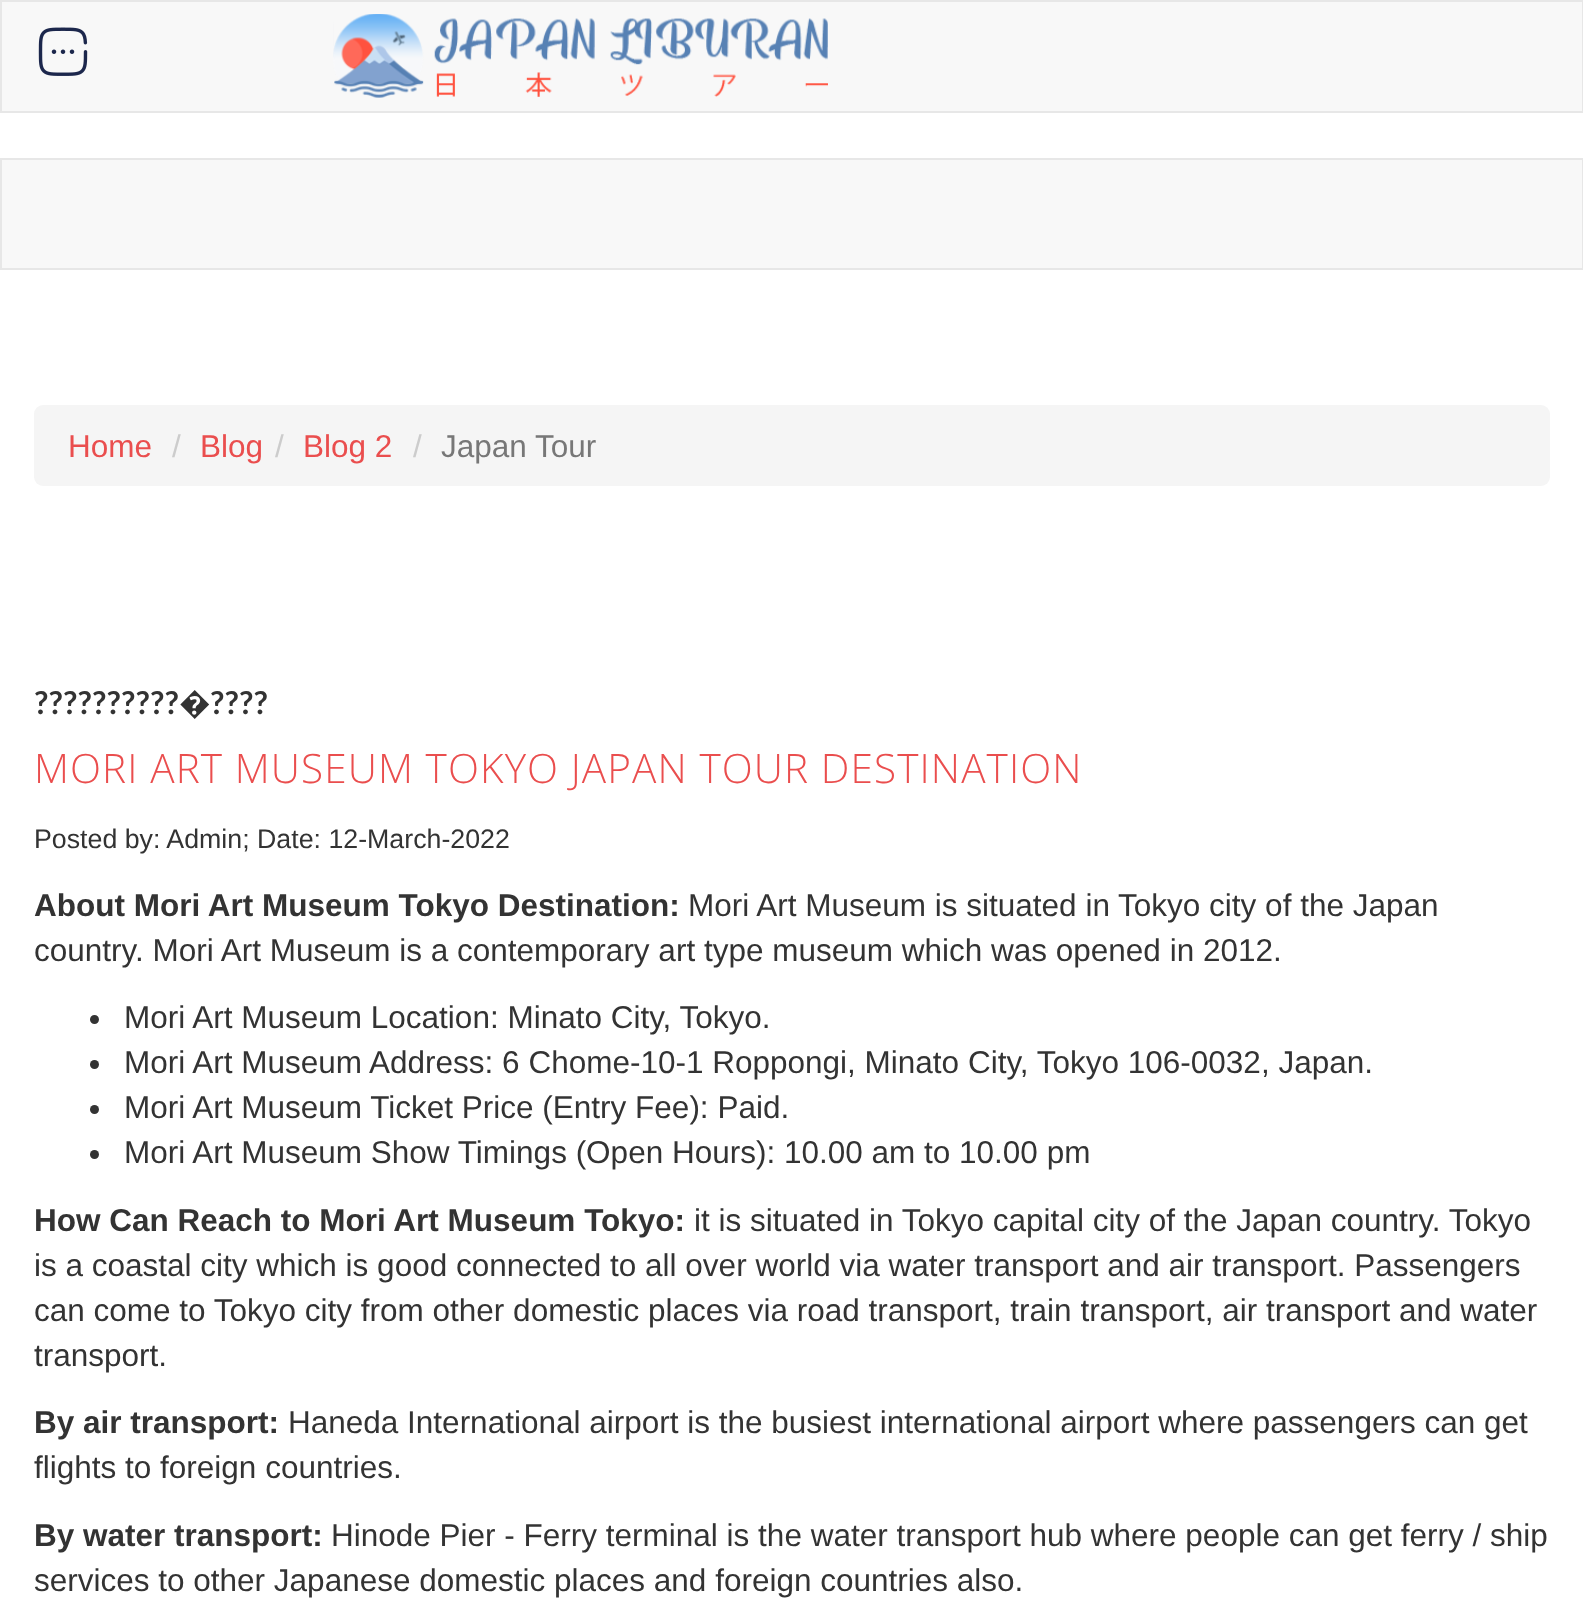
<svg xmlns="http://www.w3.org/2000/svg" width="1583" height="1624" viewBox="0 0 1583 1624">
  <rect width="100%" height="100%" fill="#ffffff"/>
  <rect x="1" y="1" width="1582" height="111" fill="#f8f8f8" stroke="#e7e7e7" stroke-width="2"/>
  <image x="38" y="27" width="50" height="49" href="img1.png"/>
  <image x="333" y="14" width="495" height="84" href="img2.png"/>
  <rect x="1" y="159" width="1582" height="110" fill="#f8f8f8" stroke="#e7e7e7" stroke-width="2"/>
  <rect x="34" y="405" width="1516" height="81" rx="9" fill="#f5f5f5"/>
  <text x="68" y="457" font-family="Liberation Sans" font-size="31.5" fill="#ea4e4e">Home</text>
  <text x="172" y="457" font-family="Liberation Sans" font-size="31.5" fill="#cccccc">/</text>
  <text x="200" y="457" font-family="Liberation Sans" font-size="31.5" fill="#ea4e4e">Blog</text>
  <text x="275" y="457" font-family="Liberation Sans" font-size="31.5" fill="#cccccc">/</text>
  <text x="303" y="457" font-family="Liberation Sans" font-size="31.5" fill="#ea4e4e">Blog 2</text>
  <text x="413" y="457" font-family="Liberation Sans" font-size="31.5" fill="#cccccc">/</text>
  <text x="441" y="457" font-family="Liberation Sans" font-size="31.5" fill="#777777">Japan Tour</text>
  <text x="34" y="714" font-family="Lato" font-size="31.5" font-weight="bold" fill="#333333">??????????</text>
  <text x="179" y="714" font-family="Noto Sans" font-size="31.5" font-weight="bold" fill="#333333">�</text>
  <text x="210" y="714" font-family="Lato" font-size="31.5" font-weight="bold" fill="#333333">????</text>
  <text x="34" y="783" font-family="Open Sans" font-size="40.5" font-weight="300" letter-spacing="1.1" fill="#ea4e4e">MORI ART MUSEUM TOKYO JAPAN TOUR DESTINATION</text>
  <text x="34" y="848" font-family="Liberation Sans" font-size="26.75" fill="#333333">Posted by: Admin; Date: 12-March-2022</text>
  <text x="34" y="916" font-family="Liberation Sans" font-size="31.5" font-weight="bold" fill="#333333">About Mori Art Museum Tokyo Destination:</text>
  <text x="688" y="916" font-family="Liberation Sans" font-size="31.5" fill="#333333">Mori Art Museum is situated in Tokyo city of the Japan</text>
  <text x="34" y="961" font-family="Liberation Sans" font-size="31.5" fill="#333333">country. Mori Art Museum is a contemporary art type museum which was opened in 2012.</text>
  <circle cx="94.5" cy="1019.5" r="4.5" fill="#333333"/>
  <text x="124" y="1028" font-family="Liberation Sans" font-size="31.5" fill="#333333">Mori Art Museum Location: Minato City, Tokyo.</text>
  <circle cx="94.5" cy="1064.5" r="4.5" fill="#333333"/>
  <text x="124" y="1073" font-family="Liberation Sans" font-size="31.5" fill="#333333">Mori Art Museum Address: 6 Chome-10-1 Roppongi, Minato City, Tokyo 106-0032, Japan.</text>
  <circle cx="94.5" cy="1109.5" r="4.5" fill="#333333"/>
  <text x="124" y="1118" font-family="Liberation Sans" font-size="31.5" fill="#333333">Mori Art Museum Ticket Price (Entry Fee): Paid.</text>
  <circle cx="94.5" cy="1154.5" r="4.5" fill="#333333"/>
  <text x="124" y="1163" font-family="Liberation Sans" font-size="31.5" fill="#333333">Mori Art Museum Show Timings (Open Hours): 10.00 am to 10.00 pm</text>
  <text x="34" y="1231" font-family="Liberation Sans" font-size="31.5" font-weight="bold" fill="#333333">How Can Reach to Mori Art Museum Tokyo:</text>
  <text x="694" y="1231" font-family="Liberation Sans" font-size="31.5" fill="#333333">it is situated in Tokyo capital city of the Japan country. Tokyo</text>
  <text x="34" y="1276" font-family="Liberation Sans" font-size="31.5" fill="#333333">is a coastal city which is good connected to all over world via water transport and air transport. Passengers</text>
  <text x="34" y="1321" font-family="Liberation Sans" font-size="31.5" fill="#333333">can come to Tokyo city from other domestic places via road transport, train transport, air transport and water</text>
  <text x="34" y="1366" font-family="Liberation Sans" font-size="31.5" fill="#333333">transport.</text>
  <text x="34" y="1433" font-family="Liberation Sans" font-size="31.5" font-weight="bold" fill="#333333">By air transport:</text>
  <text x="288" y="1433" font-family="Liberation Sans" font-size="31.5" fill="#333333">Haneda International airport is the busiest international airport where passengers can get</text>
  <text x="34" y="1478" font-family="Liberation Sans" font-size="31.5" fill="#333333">flights to foreign countries.</text>
  <text x="34" y="1546" font-family="Liberation Sans" font-size="31.5" font-weight="bold" fill="#333333">By water transport:</text>
  <text x="331" y="1546" font-family="Liberation Sans" font-size="31.5" fill="#333333">Hinode Pier - Ferry terminal is the water transport hub where people can get ferry / ship</text>
  <text x="34" y="1591" font-family="Liberation Sans" font-size="31.5" fill="#333333">services to other Japanese domestic places and foreign countries also.</text>
</svg>
